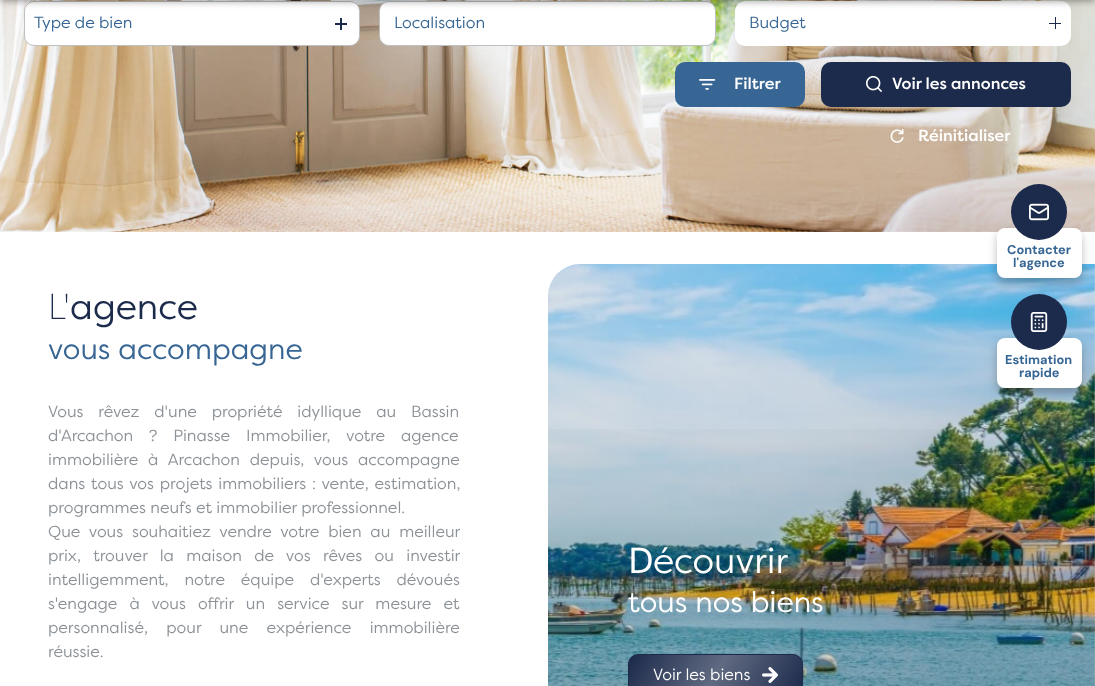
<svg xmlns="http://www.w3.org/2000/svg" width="1095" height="686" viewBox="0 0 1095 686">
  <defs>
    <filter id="blur1" x="-50%" y="-200%" width="200%" height="500%"><feGaussianBlur stdDeviation="4"/></filter>
    <linearGradient id="g1" gradientUnits="userSpaceOnUse" x1="822" y1="394" x2="822" y2="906"><stop offset="0" stop-color="#25262b" stop-opacity="0"/><stop offset="1" stop-color="#25262b" stop-opacity="0.32"/></linearGradient>
    <linearGradient id="g2" gradientUnits="userSpaceOnUse" x1="642" y1="633" x2="789" y2="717"><stop offset="0" stop-color="#ffffff" stop-opacity="0"/><stop offset="0.5" stop-color="#ffffff" stop-opacity="0.3"/><stop offset="1" stop-color="#ffffff" stop-opacity="0"/></linearGradient>
    <filter id="blur2" x="-50%" y="-200%" width="200%" height="500%"><feGaussianBlur stdDeviation="5"/></filter>
  </defs>
  <rect width="100%" height="100%" fill="#ffffff"/>
  <image x="0" y="0" width="1095" height="232" href="img1.png"/>
  <rect x="24.5" y="1.5" width="335" height="44" rx="9.5" fill="#ffffff" stroke="#bfbfbf"/>
  <rect x="379.5" y="1.5" width="336" height="44" rx="9.5" fill="#ffffff" stroke="#bfbfbf"/>
  <rect x="735" y="1" width="336" height="45" rx="10" fill="#ffffff"/>
  <rect x="0" y="-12" width="1095" height="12" fill="#0a0a0a" fill-opacity="0.5" filter="url(#blur1)"/>
  <rect x="335" y="23" width="12" height="2" fill="#1c2a4b"/>
  <rect x="340" y="18" width="2" height="12" fill="#1c2a4b"/>
  <text x="34" y="28" font-family="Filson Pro" font-size="16" fill="#376694">Type de bien</text>
  <text x="394" y="28" font-family="Filson Pro" font-size="16" fill="#376694">Localisation</text>
  <text x="749" y="28" font-family="Filson Pro" font-size="16" fill="#376694">Budget</text>
  <rect x="1055" y="17" width="1" height="12" fill="#1c2a4b"/>
  <rect x="1049" y="23" width="12" height="1" fill="#1c2a4b"/>
  <rect x="675" y="62" width="130" height="45" rx="10" fill="#376694"/>
  <image x="699" y="79" width="17" height="11" href="img2.png"/>
  <text x="734" y="89" font-family="Filson Pro" font-size="16" font-weight="500" fill="#ffffff">Filtrer</text>
  <rect x="821" y="62" width="250" height="45" rx="10" fill="#1c2a4b"/>
  <image x="866" y="76" width="16" height="16" href="img3.png"/>
  <text x="892" y="89" font-family="Filson Pro" font-size="16" font-weight="500" fill="#ffffff">Voir les annonces</text>
  <image x="890" y="129" width="14" height="14" href="img4.png"/>
  <text x="918" y="141" font-family="Filson Pro" font-size="16" font-weight="500" fill="#ffffff">Réinitialiser</text>
  <text x="48" y="319" font-family="Noto Sans" font-size="35.5" font-weight="200" fill="#1c2a4b">L'</text>
  <text x="70" y="319" font-family="Filson Pro" font-size="35.5" fill="#1c2a4b">agence</text>
  <text x="48" y="359" font-family="Filson Pro" font-size="29" fill="#376694">vous accompagne</text>
  <text x="48" y="417" word-spacing="10.5" font-family="Filson Pro" font-size="16" fill="#8c9297">Vous rêvez d'une propriété idyllique au Bassin</text>
  <text x="48" y="441" word-spacing="11.5" font-family="Filson Pro" font-size="16" fill="#8c9297">d'Arcachon ? Pinasse Immobilier, votre agence</text>
  <text x="48" y="465" word-spacing="5.5" font-family="Filson Pro" font-size="16" fill="#8c9297">immobilière à Arcachon depuis, vous accompagne</text>
  <text x="48" y="489" word-spacing="1.5" font-family="Filson Pro" font-size="16" fill="#8c9297">dans tous vos projets immobiliers : vente, estimation,</text>
  <text x="48" y="513" font-family="Filson Pro" font-size="16" fill="#8c9297">programmes neufs et immobilier professionnel.</text>
  <text x="48" y="537" word-spacing="4.5" font-family="Filson Pro" font-size="16" fill="#8c9297">Que vous souhaitiez vendre votre bien au meilleur</text>
  <text x="48" y="561" word-spacing="8" font-family="Filson Pro" font-size="16" fill="#8c9297">prix, trouver la maison de vos rêves ou investir</text>
  <text x="48" y="585" word-spacing="11.5" font-family="Filson Pro" font-size="16" fill="#8c9297">intelligemment, notre équipe d'experts dévoués</text>
  <text x="48" y="609" word-spacing="7.75" font-family="Filson Pro" font-size="16" fill="#8c9297">s'engage à vous offrir un service sur mesure et</text>
  <text x="48" y="633" word-spacing="14" font-family="Filson Pro" font-size="16" fill="#8c9297">personnalisé, pour une expérience immobilière</text>
  <text x="48" y="657" font-family="Filson Pro" font-size="16" fill="#8c9297">réussie.</text>
  <image x="548" y="264" width="547" height="422" href="img5.png"/>
  <rect x="548" y="429" width="547" height="257" fill="url(#g1)"/>
  <text x="628" y="573" font-family="Noto Sans" font-size="35.5" fill="#ffffff">D</text>
  <text x="653" y="573" font-family="Filson Pro" font-size="35.5" fill="#ffffff">écouvrir</text>
  <text x="628" y="612" font-family="Filson Pro" font-size="29" fill="#ffffff">tous nos biens</text>
  <rect x="628.5" y="654.5" width="174" height="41" rx="9.5" fill="#1c2a4b" stroke="#1c2a4b"/>
  <text x="653" y="680" font-family="Filson Pro" font-size="16" fill="#ffffff">Voir les biens</text>
  <image x="762" y="667" width="16" height="16" href="img6.png"/>
  <rect x="629" y="655" width="173" height="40" rx="9" fill="url(#g2)"/>
  <rect x="997" y="233" width="85" height="50" rx="8" fill="#0a0a0a" fill-opacity="0.25" filter="url(#blur2)"/>
  <rect x="997" y="228" width="85" height="50" rx="8" fill="#ffffff"/>
  <circle cx="1039" cy="212" r="28" fill="#1c2a4b"/>
  <image x="1029" y="203" width="20" height="18" href="img7.png"/>
  <text x="1007" y="254" font-family="DM Sans" font-size="12.75" font-weight="bold" fill="#376694">Contacter</text>
  <text x="1013" y="267" font-family="DM Sans" font-size="12.75" font-weight="bold" fill="#376694">l'agence</text>
  <rect x="997" y="343" width="85" height="50" rx="8" fill="#0a0a0a" fill-opacity="0.25" filter="url(#blur2)"/>
  <rect x="997" y="338" width="85" height="50" rx="8" fill="#ffffff"/>
  <circle cx="1039" cy="322" r="28" fill="#1c2a4b"/>
  <image x="1030" y="312" width="18" height="20" href="img8.png"/>
  <text x="1005" y="364" font-family="DM Sans" font-size="12.75" font-weight="bold" fill="#376694">Estimation</text>
  <text x="1019" y="377" font-family="DM Sans" font-size="12.75" font-weight="bold" fill="#376694">rapide</text>
</svg>
